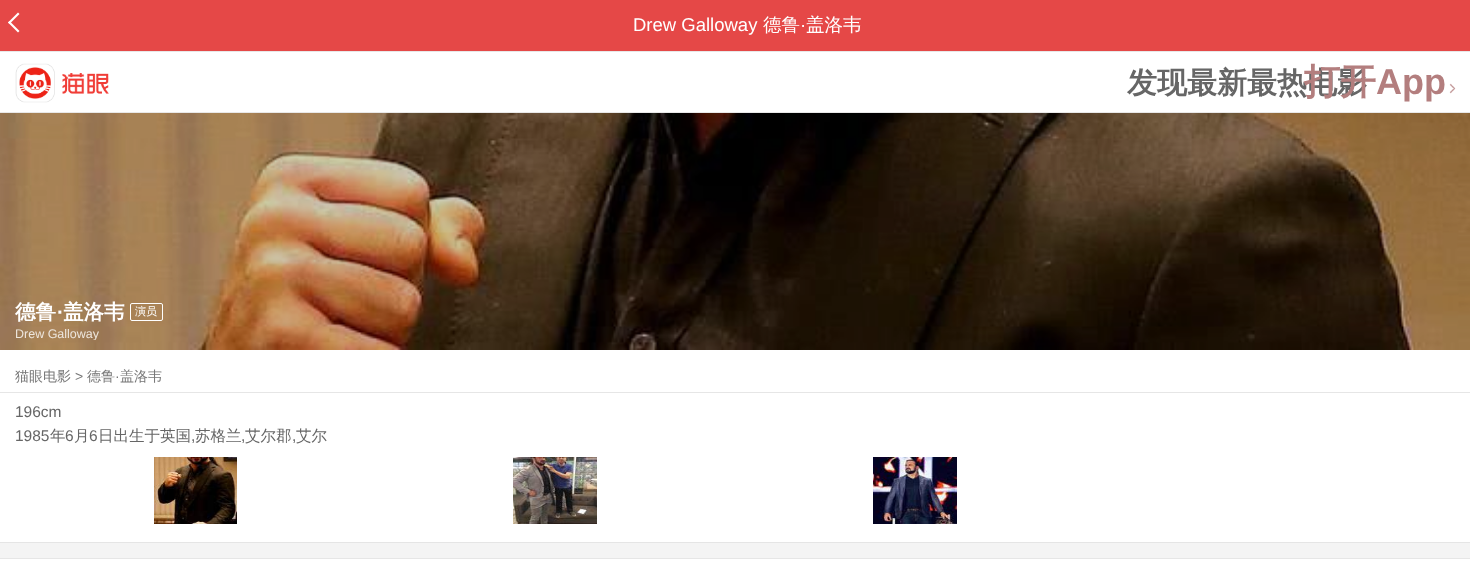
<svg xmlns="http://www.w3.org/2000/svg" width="1470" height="573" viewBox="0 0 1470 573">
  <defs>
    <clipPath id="clip1"><rect x="15" y="328" width="148" height="12"/></clipPath>
  </defs>
  <rect width="100%" height="100%" fill="#f4f4f4"/>
  <rect x="0" y="0" width="1470" height="51" fill="#e54847"/>
  <path d="M9.5 21L19.5 31L18 32.5L8 22.5Z" fill="#ffffff"/>
  <path d="M18 12.5L19.5 14L9.5 24L8 22.5Z" fill="#ffffff"/>
  <text x="633" y="31" font-family="Liberation Sans" font-size="18.5" fill="#ffffff">Drew Galloway</text>
  <text x="763" y="31" font-family="WenQuanYi Zen Hei" font-size="18.5" font-weight="500" fill="#ffffff">德鲁</text>
  <text x="800" y="31" font-family="Liberation Sans" font-size="18.5" fill="#ffffff">·</text>
  <text x="806" y="31" font-family="WenQuanYi Zen Hei" font-size="18.5" font-weight="500" fill="#ffffff">盖洛韦</text>
  <rect x="0" y="52" width="1470" height="60" fill="#ffffff"/>
  <rect x="0" y="51" width="1470" height="1" fill="#e8e8e8"/>
  <rect x="0" y="112" width="1470" height="1" fill="#e8e8e8"/>
  <image x="15" y="63" width="94" height="40" href="img1.png"/>
  <text x="1127" y="93" font-family="WenQuanYi Zen Hei" font-size="30" font-weight="bold" fill="#666666">发现最新最热电影</text>
  <text x="1304" y="94" font-family="WenQuanYi Zen Hei" font-size="36" font-weight="bold" fill="#b37e7e">打开</text>
  <text x="1376" y="94" font-family="Liberation Sans" font-size="36" font-weight="bold" fill="#b37e7e">App</text>
  <image x="1449" y="83" width="7" height="11" href="img2.png"/>
  <rect x="0" y="350" width="1470" height="192" fill="#ffffff"/>
  <image x="0" y="113" width="1470" height="237" href="img3.png"/>
  <text x="15" y="319" font-family="WenQuanYi Zen Hei" font-size="20.5" font-weight="bold" fill="#ffffff">德鲁</text>
  <text x="57" y="319" font-family="Liberation Sans" font-size="20.5" font-weight="bold" fill="#ffffff">·</text>
  <text x="63" y="319" font-family="WenQuanYi Zen Hei" font-size="20.5" font-weight="bold" fill="#ffffff">盖洛韦</text>
  <rect x="130.5" y="303.5" width="32" height="17" rx="1.5" fill="none" stroke="#ffffff"/>
  <text x="135" y="315" font-family="WenQuanYi Zen Hei" font-size="11" font-weight="500" fill="#ffffff">演员</text>
  <g clip-path="url(#clip1)">
    <text x="15" y="338" font-family="Liberation Sans" font-size="12.5" fill="#ede6dd">Drew Galloway</text>
  </g>
  <text x="15" y="381" font-family="WenQuanYi Zen Hei" font-size="14" font-weight="500" fill="#777777">猫眼电影</text>
  <text x="75" y="381" font-family="Liberation Sans" font-size="14" fill="#777777">&gt;</text>
  <text x="87" y="381" font-family="WenQuanYi Zen Hei" font-size="14" font-weight="500" fill="#777777">德鲁</text>
  <text x="115" y="381" font-family="Liberation Sans" font-size="14" fill="#777777">·</text>
  <text x="120" y="381" font-family="WenQuanYi Zen Hei" font-size="14" font-weight="500" fill="#777777">盖洛韦</text>
  <rect x="0" y="542" width="1470" height="1" fill="#e5e5e5"/>
  <rect x="0" y="392" width="1470" height="1" fill="#e6e6e6"/>
  <text x="15" y="417" font-family="Liberation Sans" font-size="15.5" fill="#666666">196cm</text>
  <text x="15" y="441" font-family="Liberation Sans" font-size="15.5" fill="#666666">1985</text>
  <text x="50" y="441" font-family="WenQuanYi Zen Hei" font-size="15.5" font-weight="500" fill="#666666">年</text>
  <text x="65" y="441" font-family="Liberation Sans" font-size="15.5" fill="#666666">6</text>
  <text x="74" y="441" font-family="WenQuanYi Zen Hei" font-size="15.5" font-weight="500" fill="#666666">月</text>
  <text x="89" y="441" font-family="Liberation Sans" font-size="15.5" fill="#666666">6</text>
  <text x="98" y="441" font-family="WenQuanYi Zen Hei" font-size="15.5" font-weight="500" fill="#666666">日出生于英国</text>
  <text x="191" y="441" font-family="Liberation Sans" font-size="15.5" fill="#666666">,</text>
  <text x="195" y="441" font-family="WenQuanYi Zen Hei" font-size="15.5" font-weight="500" fill="#666666">苏格兰</text>
  <text x="241" y="441" font-family="Liberation Sans" font-size="15.5" fill="#666666">,</text>
  <text x="245" y="441" font-family="WenQuanYi Zen Hei" font-size="15.5" font-weight="500" fill="#666666">艾尔郡</text>
  <text x="292" y="441" font-family="Liberation Sans" font-size="15.5" fill="#666666">,</text>
  <text x="296" y="441" font-family="WenQuanYi Zen Hei" font-size="15.5" font-weight="500" fill="#666666">艾尔</text>
  <image x="154" y="457" width="83" height="67" href="img4.png"/>
  <image x="513" y="457" width="84" height="67" href="img5.png"/>
  <image x="873" y="457" width="84" height="67" href="img6.png"/>
  <rect x="0" y="559" width="1470" height="14" fill="#ffffff"/>
  <rect x="0" y="558" width="1470" height="1" fill="#e6e6e6"/>
</svg>
